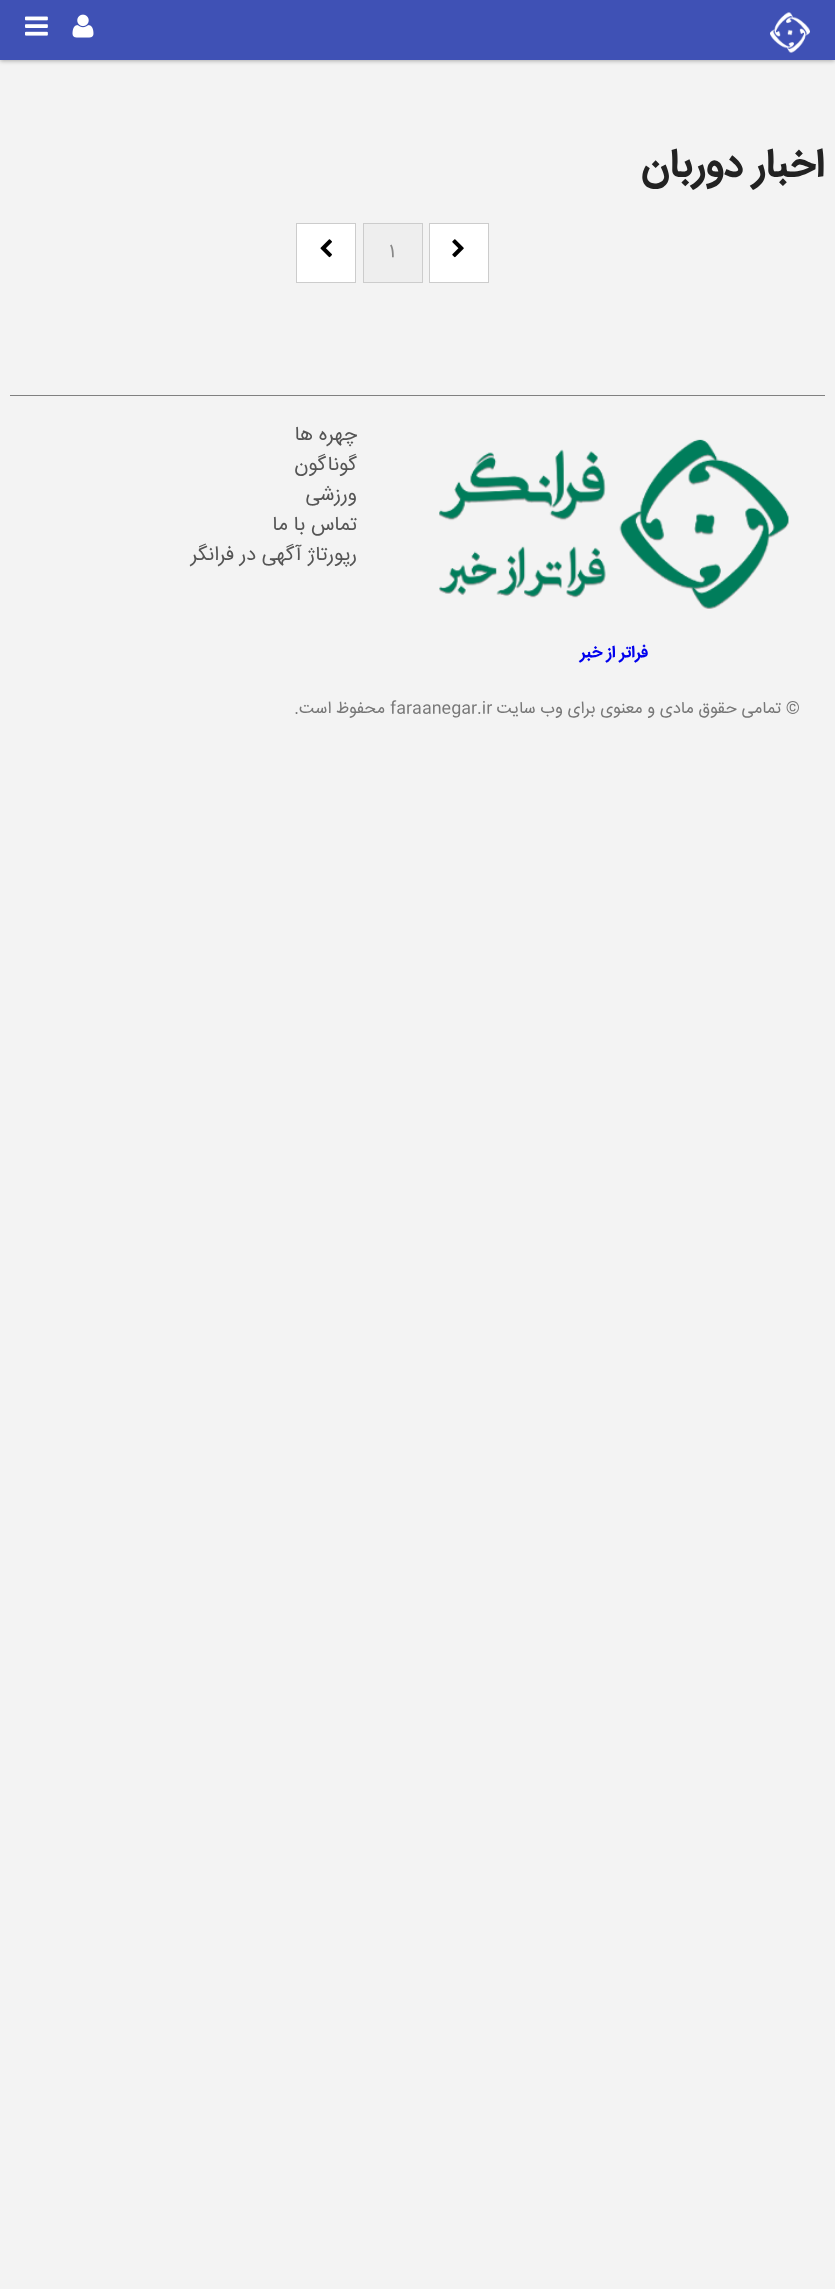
<svg xmlns="http://www.w3.org/2000/svg" width="835" height="2289" viewBox="0 0 835 2289">
  <defs>
    <filter id="blur1" x="-50%" y="-200%" width="200%" height="500%"><feGaussianBlur stdDeviation="2"/></filter>
  </defs>
  <rect width="100%" height="100%" fill="#f3f3f3"/>
  <rect x="0" y="1" width="835" height="60" fill="#000000" fill-opacity="0.3" filter="url(#blur1)"/>
  <rect x="0" y="0" width="835" height="60" fill="#3f51b5"/>
  <image x="770" y="12" width="40" height="41" href="img1.png"/>
  <image x="72" y="14" width="22" height="24" href="img2.png"/>
  <image x="25" y="16" width="23" height="20" href="img3.png"/>
  <text x="825" y="176" font-family="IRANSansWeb" font-size="40" font-weight="bold" direction="rtl" fill="#222222">اخبار دوربان</text>
  <rect x="429.5" y="223.5" width="59" height="59" fill="#ffffff" stroke="#cccccc"/>
  <image x="452" y="239" width="12" height="19" href="img4.png"/>
  <rect x="363.5" y="223.5" width="59" height="59" fill="#eeeeee" stroke="#cccccc"/>
  <text x="389" y="257" font-family="IRANSansWeb" font-size="20" fill="#888888">۱</text>
  <rect x="296.5" y="223.5" width="59" height="59" fill="#ffffff" stroke="#cccccc"/>
  <image x="320" y="239" width="12" height="19" href="img5.png"/>
  <rect x="10" y="395" width="815" height="1" fill="#808080"/>
  <text x="357" y="440" font-family="IRANSansWeb" font-size="20" direction="rtl" fill="#555555">چهره ها</text>
  <text x="357" y="470" font-family="IRANSansWeb" font-size="20" direction="rtl" fill="#555555">گوناگون</text>
  <text x="357" y="500" font-family="IRANSansWeb" font-size="20" direction="rtl" fill="#555555">ورزشی</text>
  <text x="357" y="530" font-family="IRANSansWeb" font-size="20" direction="rtl" fill="#555555">تماس با ما</text>
  <text x="357" y="560" font-family="IRANSansWeb" font-size="20" direction="rtl" fill="#555555">رپورتاژ آگهی در فرانگر</text>
  <image x="439" y="439" width="350" height="170" href="img6.png"/>
  <text x="648" y="657" font-family="IRANSansWeb" font-size="16.7" font-weight="bold" direction="rtl" fill="#0000ee">فراتر از خبر</text>
  <text x="800" y="713" font-family="IRANSansWeb" font-size="16.7" direction="rtl" fill="#777777">© تمامی حقوق مادی و معنوی برای وب سایت</text>
  <text x="390" y="713" font-family="IRANSansWeb" font-size="16.7" fill="#777777">faraanegar.ir</text>
  <text x="385" y="713" font-family="IRANSansWeb" font-size="16.7" direction="rtl" fill="#777777">محفوظ است.</text>
</svg>
